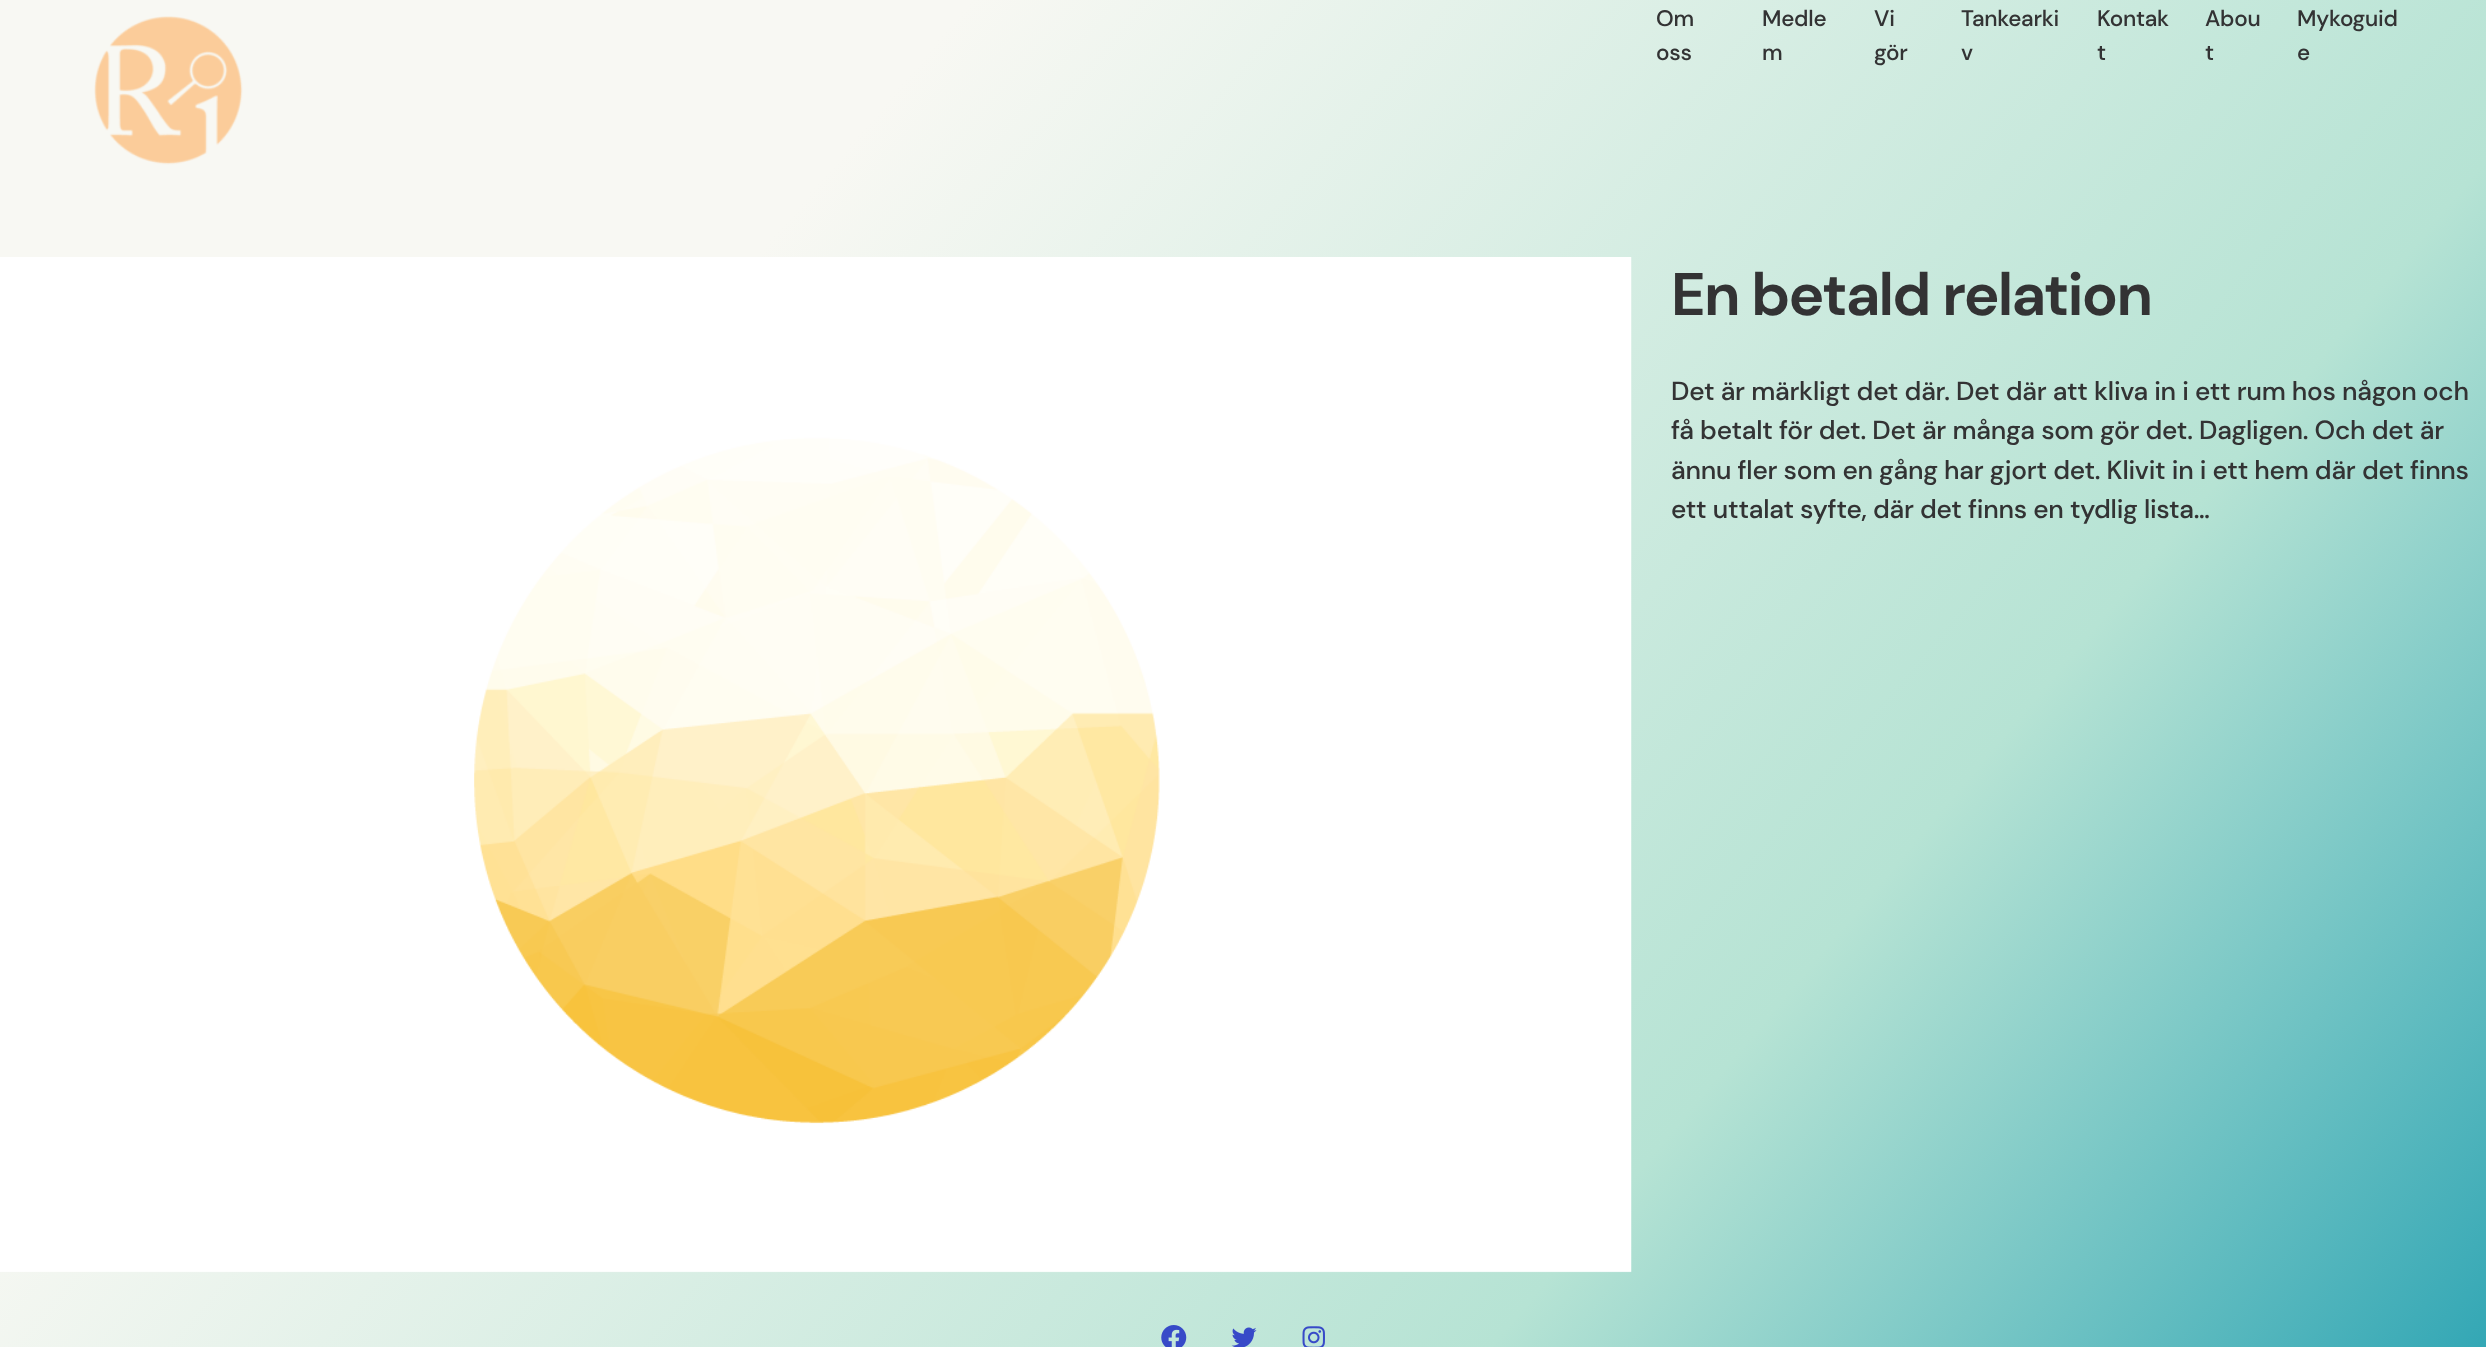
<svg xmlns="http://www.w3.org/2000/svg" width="2486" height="1347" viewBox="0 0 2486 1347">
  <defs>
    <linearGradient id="g1" gradientUnits="userSpaceOnUse" x1="117" y1="-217" x2="2369" y2="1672"><stop offset="0.27" stop-color="#f8f8f3"/><stop offset="0.7" stop-color="#b6e3d4"/><stop offset="0.96" stop-color="#33a7b5"/></linearGradient>
  </defs>
  <rect width="100%" height="100%" fill="#ffffff"/>
  <rect x="0" y="0" width="2486" height="1347" fill="url(#g1)"/>
  <image x="94" y="16" width="149" height="149" href="img1.png"/>
  <text x="1656" y="26" font-family="DM Sans" font-size="22.5" font-weight="500" letter-spacing="-0.25" fill="#333334">Om</text>
  <text x="1656" y="60" font-family="DM Sans" font-size="22.5" font-weight="500" letter-spacing="-0.25" fill="#333334">oss</text>
  <text x="1762" y="26" font-family="DM Sans" font-size="22.5" font-weight="500" letter-spacing="-0.25" fill="#333334">Medle</text>
  <text x="1762" y="60" font-family="DM Sans" font-size="22.5" font-weight="500" letter-spacing="-0.25" fill="#333334">m</text>
  <text x="1874" y="26" font-family="DM Sans" font-size="22.5" font-weight="500" letter-spacing="-0.25" fill="#333334">Vi</text>
  <text x="1874" y="60" font-family="DM Sans" font-size="22.5" font-weight="500" letter-spacing="-0.25" fill="#333334">gör</text>
  <text x="1961" y="26" font-family="DM Sans" font-size="22.5" font-weight="500" letter-spacing="-0.25" fill="#333334">Tankearki</text>
  <text x="1961" y="60" font-family="DM Sans" font-size="22.5" font-weight="500" letter-spacing="-0.25" fill="#333334">v</text>
  <text x="2097" y="26" font-family="DM Sans" font-size="22.5" font-weight="500" letter-spacing="-0.25" fill="#333334">Kontak</text>
  <text x="2097" y="60" font-family="DM Sans" font-size="22.5" font-weight="500" letter-spacing="-0.25" fill="#333334">t</text>
  <text x="2205" y="26" font-family="DM Sans" font-size="22.5" font-weight="500" letter-spacing="-0.25" fill="#333334">Abou</text>
  <text x="2205" y="60" font-family="DM Sans" font-size="22.5" font-weight="500" letter-spacing="-0.25" fill="#333334">t</text>
  <text x="2297" y="26" font-family="DM Sans" font-size="22.5" font-weight="500" letter-spacing="-0.25" fill="#333334">Mykoguid</text>
  <text x="2297" y="60" font-family="DM Sans" font-size="22.5" font-weight="500" letter-spacing="-0.25" fill="#333334">e</text>
  <image x="0" y="257" width="1632" height="1016" href="img2.png"/>
  <text x="1671" y="315" font-family="DM Sans" font-size="60" font-weight="bold" letter-spacing="-1.75" fill="#333334">En betald relation</text>
  <text x="1671" y="400" font-family="DM Sans" font-size="26.25" font-weight="500" letter-spacing="-0.25" fill="#333334">Det är märkligt det där. Det där att kliva in i ett rum hos någon och</text>
  <text x="1671" y="439" font-family="DM Sans" font-size="26.25" font-weight="500" letter-spacing="-0.25" fill="#333334">få betalt för det. Det är många som gör det. Dagligen. Och det är</text>
  <text x="1671" y="479" font-family="DM Sans" font-size="26.25" font-weight="500" letter-spacing="-0.25" fill="#333334">ännu fler som en gång har gjort det. Klivit in i ett hem där det finns</text>
  <text x="1671" y="518" font-family="DM Sans" font-size="26.25" font-weight="500" letter-spacing="-0.25" fill="#333334">ett uttalat syfte, där det finns en tydlig lista…</text>
  <image x="1161" y="1325" width="26" height="22" href="img3.png"/>
  <image x="1231" y="1327" width="26" height="20" href="img4.png"/>
  <image x="1302" y="1326" width="23" height="21" href="img5.png"/>
</svg>
